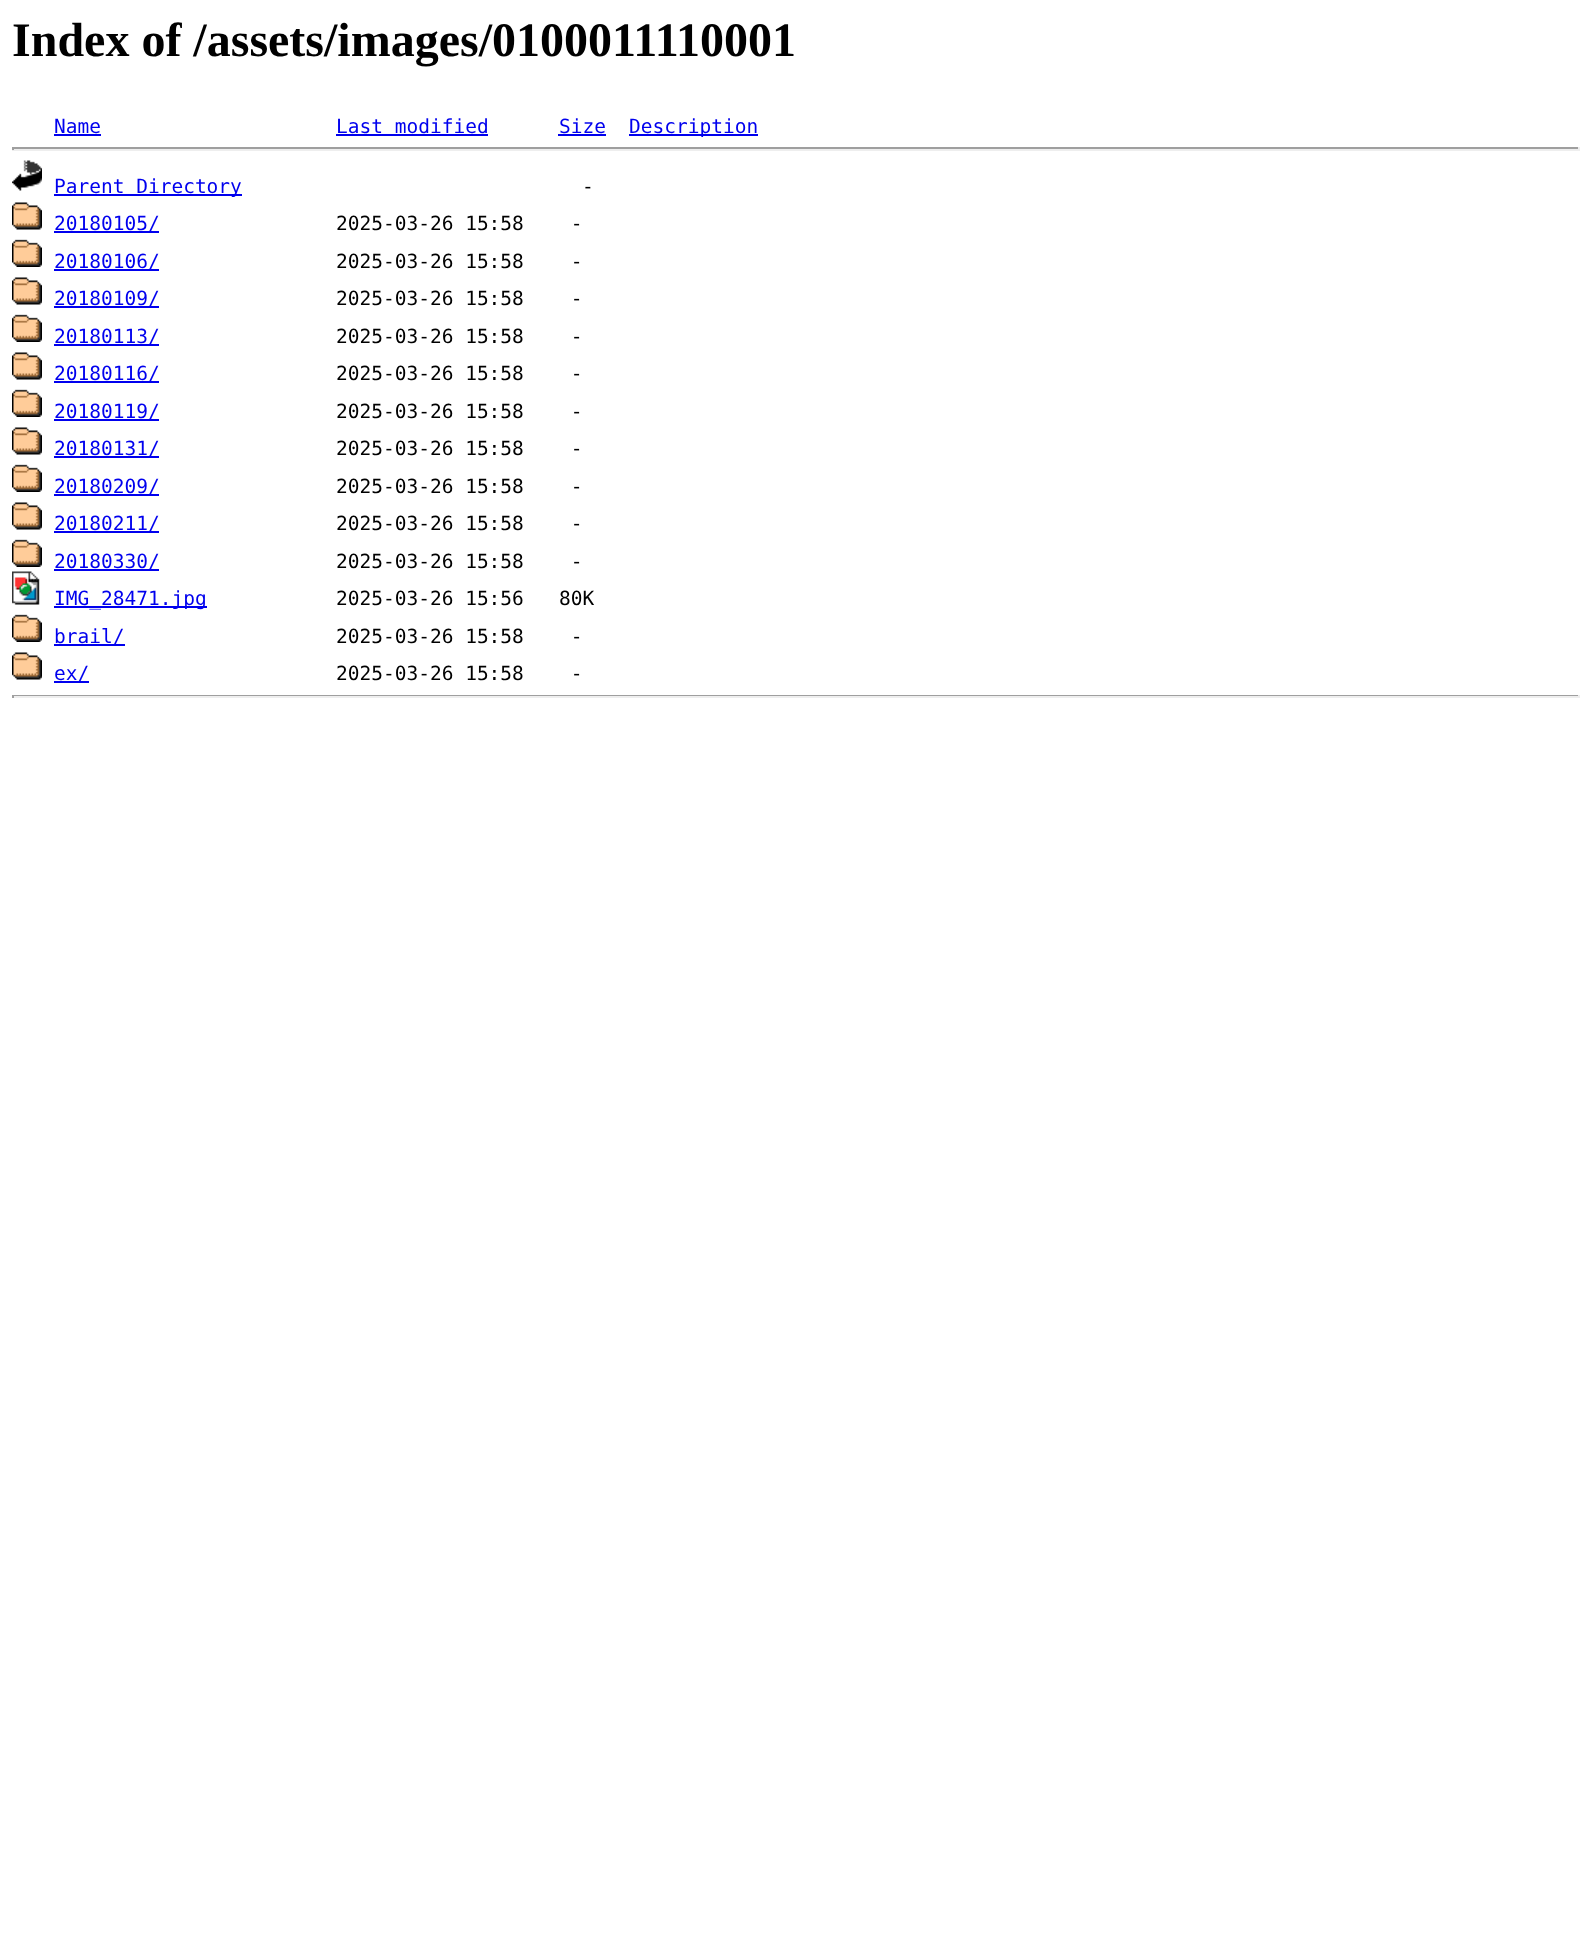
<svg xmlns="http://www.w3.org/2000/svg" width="1591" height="1958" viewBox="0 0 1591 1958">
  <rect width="100%" height="100%" fill="#ffffff"/>
  <text x="12" y="56" font-family="Liberation Serif" font-size="48" font-weight="bold" fill="#000000">Index of /assets/images/0100011110001</text>
  <text x="54" y="133" font-family="DejaVu Sans Mono" font-size="19.5" fill="#0000ee">Name</text>
  <rect x="54" y="134" width="47" height="2" fill="#0000ee"/>
  <text x="336" y="133" font-family="DejaVu Sans Mono" font-size="19.5" fill="#0000ee">Last modified</text>
  <rect x="336" y="134" width="152" height="2" fill="#0000ee"/>
  <text x="559" y="133" font-family="DejaVu Sans Mono" font-size="19.5" fill="#0000ee">Size</text>
  <rect x="558" y="134" width="48" height="2" fill="#0000ee"/>
  <rect x="629" y="134" width="129" height="2" fill="#0000ee"/>
  <text x="629" y="133" font-family="DejaVu Sans Mono" font-size="19.5" fill="#0000ee">Description</text>
  <rect x="12" y="147" width="1568" height="2" fill="#9f9f9f"/>
  <rect x="1578" y="147" width="2" height="3" fill="#eeeeee"/>
  <rect x="12" y="149" width="1568" height="2" fill="#eeeeee"/>
  <rect x="12" y="147" width="2" height="3" fill="#9f9f9f"/>
  <image x="12" y="160" width="30" height="31" href="img1.png"/>
  <rect x="54" y="194" width="188" height="2" fill="#0000ee"/>
  <text x="54" y="193" font-family="DejaVu Sans Mono" font-size="19.5" fill="#0000ee">Parent Directory</text>
  <text x="582" y="193" font-family="DejaVu Sans Mono" font-size="19.5" fill="#000000">-</text>
  <image x="12" y="202" width="30" height="28" href="img2.png"/>
  <rect x="54" y="231" width="105" height="2" fill="#0000ee"/>
  <text x="54" y="230" font-family="DejaVu Sans Mono" font-size="19.5" fill="#0000ee">20180105/</text>
  <text x="336" y="230" font-family="DejaVu Sans Mono" font-size="19.5" fill="#000000" xml:space="preserve">2025-03-26 15:58    -</text>
  <image x="12" y="239" width="30" height="28" href="img3.png"/>
  <rect x="54" y="269" width="105" height="2" fill="#0000ee"/>
  <text x="54" y="268" font-family="DejaVu Sans Mono" font-size="19.5" fill="#0000ee">20180106/</text>
  <text x="336" y="268" font-family="DejaVu Sans Mono" font-size="19.5" fill="#000000" xml:space="preserve">2025-03-26 15:58    -</text>
  <image x="12" y="277" width="30" height="28" href="img2.png"/>
  <rect x="54" y="306" width="105" height="2" fill="#0000ee"/>
  <text x="54" y="305" font-family="DejaVu Sans Mono" font-size="19.5" fill="#0000ee">20180109/</text>
  <text x="336" y="305" font-family="DejaVu Sans Mono" font-size="19.5" fill="#000000" xml:space="preserve">2025-03-26 15:58    -</text>
  <image x="12" y="314" width="30" height="28" href="img3.png"/>
  <rect x="54" y="344" width="105" height="2" fill="#0000ee"/>
  <text x="54" y="343" font-family="DejaVu Sans Mono" font-size="19.5" fill="#0000ee">20180113/</text>
  <text x="336" y="343" font-family="DejaVu Sans Mono" font-size="19.5" fill="#000000" xml:space="preserve">2025-03-26 15:58    -</text>
  <image x="12" y="352" width="30" height="28" href="img2.png"/>
  <rect x="54" y="381" width="105" height="2" fill="#0000ee"/>
  <text x="54" y="380" font-family="DejaVu Sans Mono" font-size="19.5" fill="#0000ee">20180116/</text>
  <text x="336" y="380" font-family="DejaVu Sans Mono" font-size="19.5" fill="#000000" xml:space="preserve">2025-03-26 15:58    -</text>
  <image x="12" y="389" width="30" height="28" href="img3.png"/>
  <rect x="54" y="419" width="105" height="2" fill="#0000ee"/>
  <text x="54" y="418" font-family="DejaVu Sans Mono" font-size="19.5" fill="#0000ee">20180119/</text>
  <text x="336" y="418" font-family="DejaVu Sans Mono" font-size="19.5" fill="#000000" xml:space="preserve">2025-03-26 15:58    -</text>
  <image x="12" y="427" width="30" height="28" href="img2.png"/>
  <rect x="54" y="456" width="105" height="2" fill="#0000ee"/>
  <text x="54" y="455" font-family="DejaVu Sans Mono" font-size="19.5" fill="#0000ee">20180131/</text>
  <text x="336" y="455" font-family="DejaVu Sans Mono" font-size="19.5" fill="#000000" xml:space="preserve">2025-03-26 15:58    -</text>
  <image x="12" y="464" width="30" height="28" href="img3.png"/>
  <rect x="54" y="494" width="105" height="2" fill="#0000ee"/>
  <text x="54" y="493" font-family="DejaVu Sans Mono" font-size="19.5" fill="#0000ee">20180209/</text>
  <text x="336" y="493" font-family="DejaVu Sans Mono" font-size="19.5" fill="#000000" xml:space="preserve">2025-03-26 15:58    -</text>
  <image x="12" y="502" width="30" height="28" href="img2.png"/>
  <rect x="54" y="531" width="105" height="2" fill="#0000ee"/>
  <text x="54" y="530" font-family="DejaVu Sans Mono" font-size="19.5" fill="#0000ee">20180211/</text>
  <text x="336" y="530" font-family="DejaVu Sans Mono" font-size="19.5" fill="#000000" xml:space="preserve">2025-03-26 15:58    -</text>
  <image x="12" y="539" width="30" height="28" href="img3.png"/>
  <rect x="54" y="569" width="105" height="2" fill="#0000ee"/>
  <text x="54" y="568" font-family="DejaVu Sans Mono" font-size="19.5" fill="#0000ee">20180330/</text>
  <text x="336" y="568" font-family="DejaVu Sans Mono" font-size="19.5" fill="#000000" xml:space="preserve">2025-03-26 15:58    -</text>
  <image x="12" y="571" width="28" height="34" href="img4.png"/>
  <rect x="54" y="606" width="153" height="2" fill="#0000ee"/>
  <text x="54" y="605" font-family="DejaVu Sans Mono" font-size="19.5" fill="#0000ee">IMG_28471.jpg</text>
  <text x="336" y="605" font-family="DejaVu Sans Mono" font-size="19.5" fill="#000000" xml:space="preserve">2025-03-26 15:56   80K</text>
  <image x="12" y="614" width="30" height="28" href="img3.png"/>
  <rect x="54" y="644" width="71" height="2" fill="#0000ee"/>
  <text x="54" y="643" font-family="DejaVu Sans Mono" font-size="19.5" fill="#0000ee">brail/</text>
  <text x="336" y="643" font-family="DejaVu Sans Mono" font-size="19.5" fill="#000000" xml:space="preserve">2025-03-26 15:58    -</text>
  <image x="12" y="652" width="30" height="28" href="img2.png"/>
  <rect x="54" y="681" width="35" height="2" fill="#0000ee"/>
  <text x="54" y="680" font-family="DejaVu Sans Mono" font-size="19.5" fill="#0000ee">ex/</text>
  <text x="336" y="680" font-family="DejaVu Sans Mono" font-size="19.5" fill="#000000" xml:space="preserve">2025-03-26 15:58    -</text>
  <rect x="12" y="695" width="1568" height="1" fill="#9f9f9f"/>
  <rect x="1578" y="695" width="2" height="3" fill="#eeeeee"/>
  <rect x="12" y="696" width="1568" height="2" fill="#eeeeee"/>
  <rect x="12" y="695" width="2" height="3" fill="#9f9f9f"/>
</svg>
